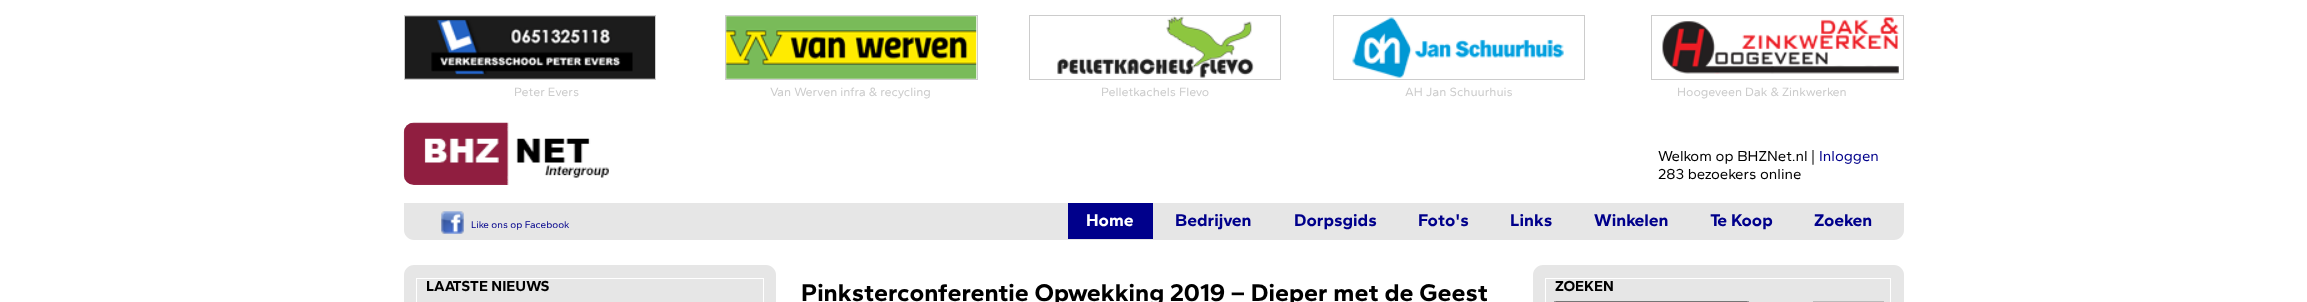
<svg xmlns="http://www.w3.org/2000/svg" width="2307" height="302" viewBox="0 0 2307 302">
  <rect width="100%" height="100%" fill="#ffffff"/>
  <rect x="404.5" y="15.5" width="251" height="64" fill="none" stroke="#cccccc"/>
  <image x="405" y="16" width="250" height="63" href="img1.png"/>
  <text x="514" y="96" font-family="Gantari" font-size="12.5" fill="#cccccc">Peter Evers</text>
  <rect x="725.5" y="15.5" width="252" height="64" fill="none" stroke="#cccccc"/>
  <image x="726" y="16" width="251" height="63" href="img2.png"/>
  <text x="770" y="96" font-family="Gantari" font-size="12.5" fill="#cccccc">Van Werven infra &amp; recycling</text>
  <rect x="1029.5" y="15.5" width="251" height="64" fill="none" stroke="#cccccc"/>
  <image x="1057" y="16" width="197" height="62" href="img3.png"/>
  <text x="1101" y="96" font-family="Gantari" font-size="12.5" fill="#cccccc">Pelletkachels Flevo</text>
  <rect x="1333.5" y="15.5" width="251" height="64" fill="none" stroke="#cccccc"/>
  <image x="1333" y="16" width="231" height="63" href="img4.png"/>
  <text x="1405" y="96" font-family="Gantari" font-size="12.5" fill="#cccccc">AH Jan Schuurhuis</text>
  <rect x="1651.5" y="15.5" width="252" height="64" fill="none" stroke="#cccccc"/>
  <image x="1662" y="17" width="237" height="57" href="img5.png"/>
  <text x="1677" y="96" font-family="Gantari" font-size="12.5" fill="#cccccc">Hoogeveen Dak &amp; Zinkwerken</text>
  <image x="403" y="122" width="206" height="63" href="img6.png"/>
  <text x="1658" y="161" font-family="Gantari" font-size="15" fill="#000000">Welkom op BHZNet.nl |</text>
  <text x="1819" y="161" font-family="Gantari" font-size="15" fill="#00008b">Inloggen</text>
  <text x="1658" y="179" font-family="Gantari" font-size="15" fill="#000000">283 bezoekers online</text>
  <path d="M1068 203H1904V230C1904 235.5 1899.5 240 1894 240H1068Z" fill="#e6e6e6"/>
  <path d="M404 203H1279V240H414C408.5 240 404 235.5 404 230Z" fill="#e6e6e6"/>
  <rect x="1068" y="203" width="85" height="36" fill="#00008b"/>
  <text x="1086" y="226" font-family="Gantari" font-size="17.5" font-weight="bold" fill="#ffffff">Home</text>
  <text x="1175" y="226" font-family="Gantari" font-size="17.5" font-weight="bold" fill="#00008b">Bedrijven</text>
  <text x="1294" y="226" font-family="Gantari" font-size="17.5" font-weight="bold" fill="#00008b">Dorpsgids</text>
  <text x="1418" y="226" font-family="Gantari" font-size="17.5" font-weight="bold" fill="#00008b">Foto's</text>
  <text x="1510" y="226" font-family="Gantari" font-size="17.5" font-weight="bold" fill="#00008b">Links</text>
  <text x="1594" y="226" font-family="Gantari" font-size="17.5" font-weight="bold" fill="#00008b">Winkelen</text>
  <text x="1710" y="226" font-family="Gantari" font-size="17.5" font-weight="bold" fill="#00008b">Te Koop</text>
  <text x="1814" y="226" font-family="Gantari" font-size="17.5" font-weight="bold" fill="#00008b">Zoeken</text>
  <image x="441" y="211" width="23" height="23" href="img7.png"/>
  <text x="471" y="228" font-family="Gantari" font-size="10" fill="#00008b">Like ons op Facebook</text>
  <path d="M414 265H766C771.5 265 776 269.5 776 275V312H404V275C404 269.5 408.5 265 414 265Z" fill="#e6e6e6"/>
  <rect x="416.5" y="278.5" width="347" height="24" fill="none" stroke="#ffffff"/>
  <text x="426" y="291" font-family="Gantari" font-size="15" font-weight="bold" fill="#000000">LAATSTE NIEUWS</text>
  <text x="801" y="301" font-family="Gantari" font-size="25" font-weight="bold" fill="#000000">Pinksterconferentie Opwekking 2019 – Dieper met de Geest</text>
  <path d="M1543 265H1894C1899.5 265 1904 269.5 1904 275V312H1533V275C1533 269.5 1537.5 265 1543 265Z" fill="#e6e6e6"/>
  <rect x="1545.5" y="278.5" width="345" height="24" fill="none" stroke="#ffffff"/>
  <text x="1555" y="291" font-family="Gantari" font-size="15" font-weight="bold" fill="#000000">ZOEKEN</text>
  <rect x="1553.5" y="301.5" width="196" height="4" rx="2" fill="none" stroke="#767676"/>
  <rect x="1813.5" y="301.5" width="70" height="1" fill="none" stroke="#bbbbbb"/>
</svg>
